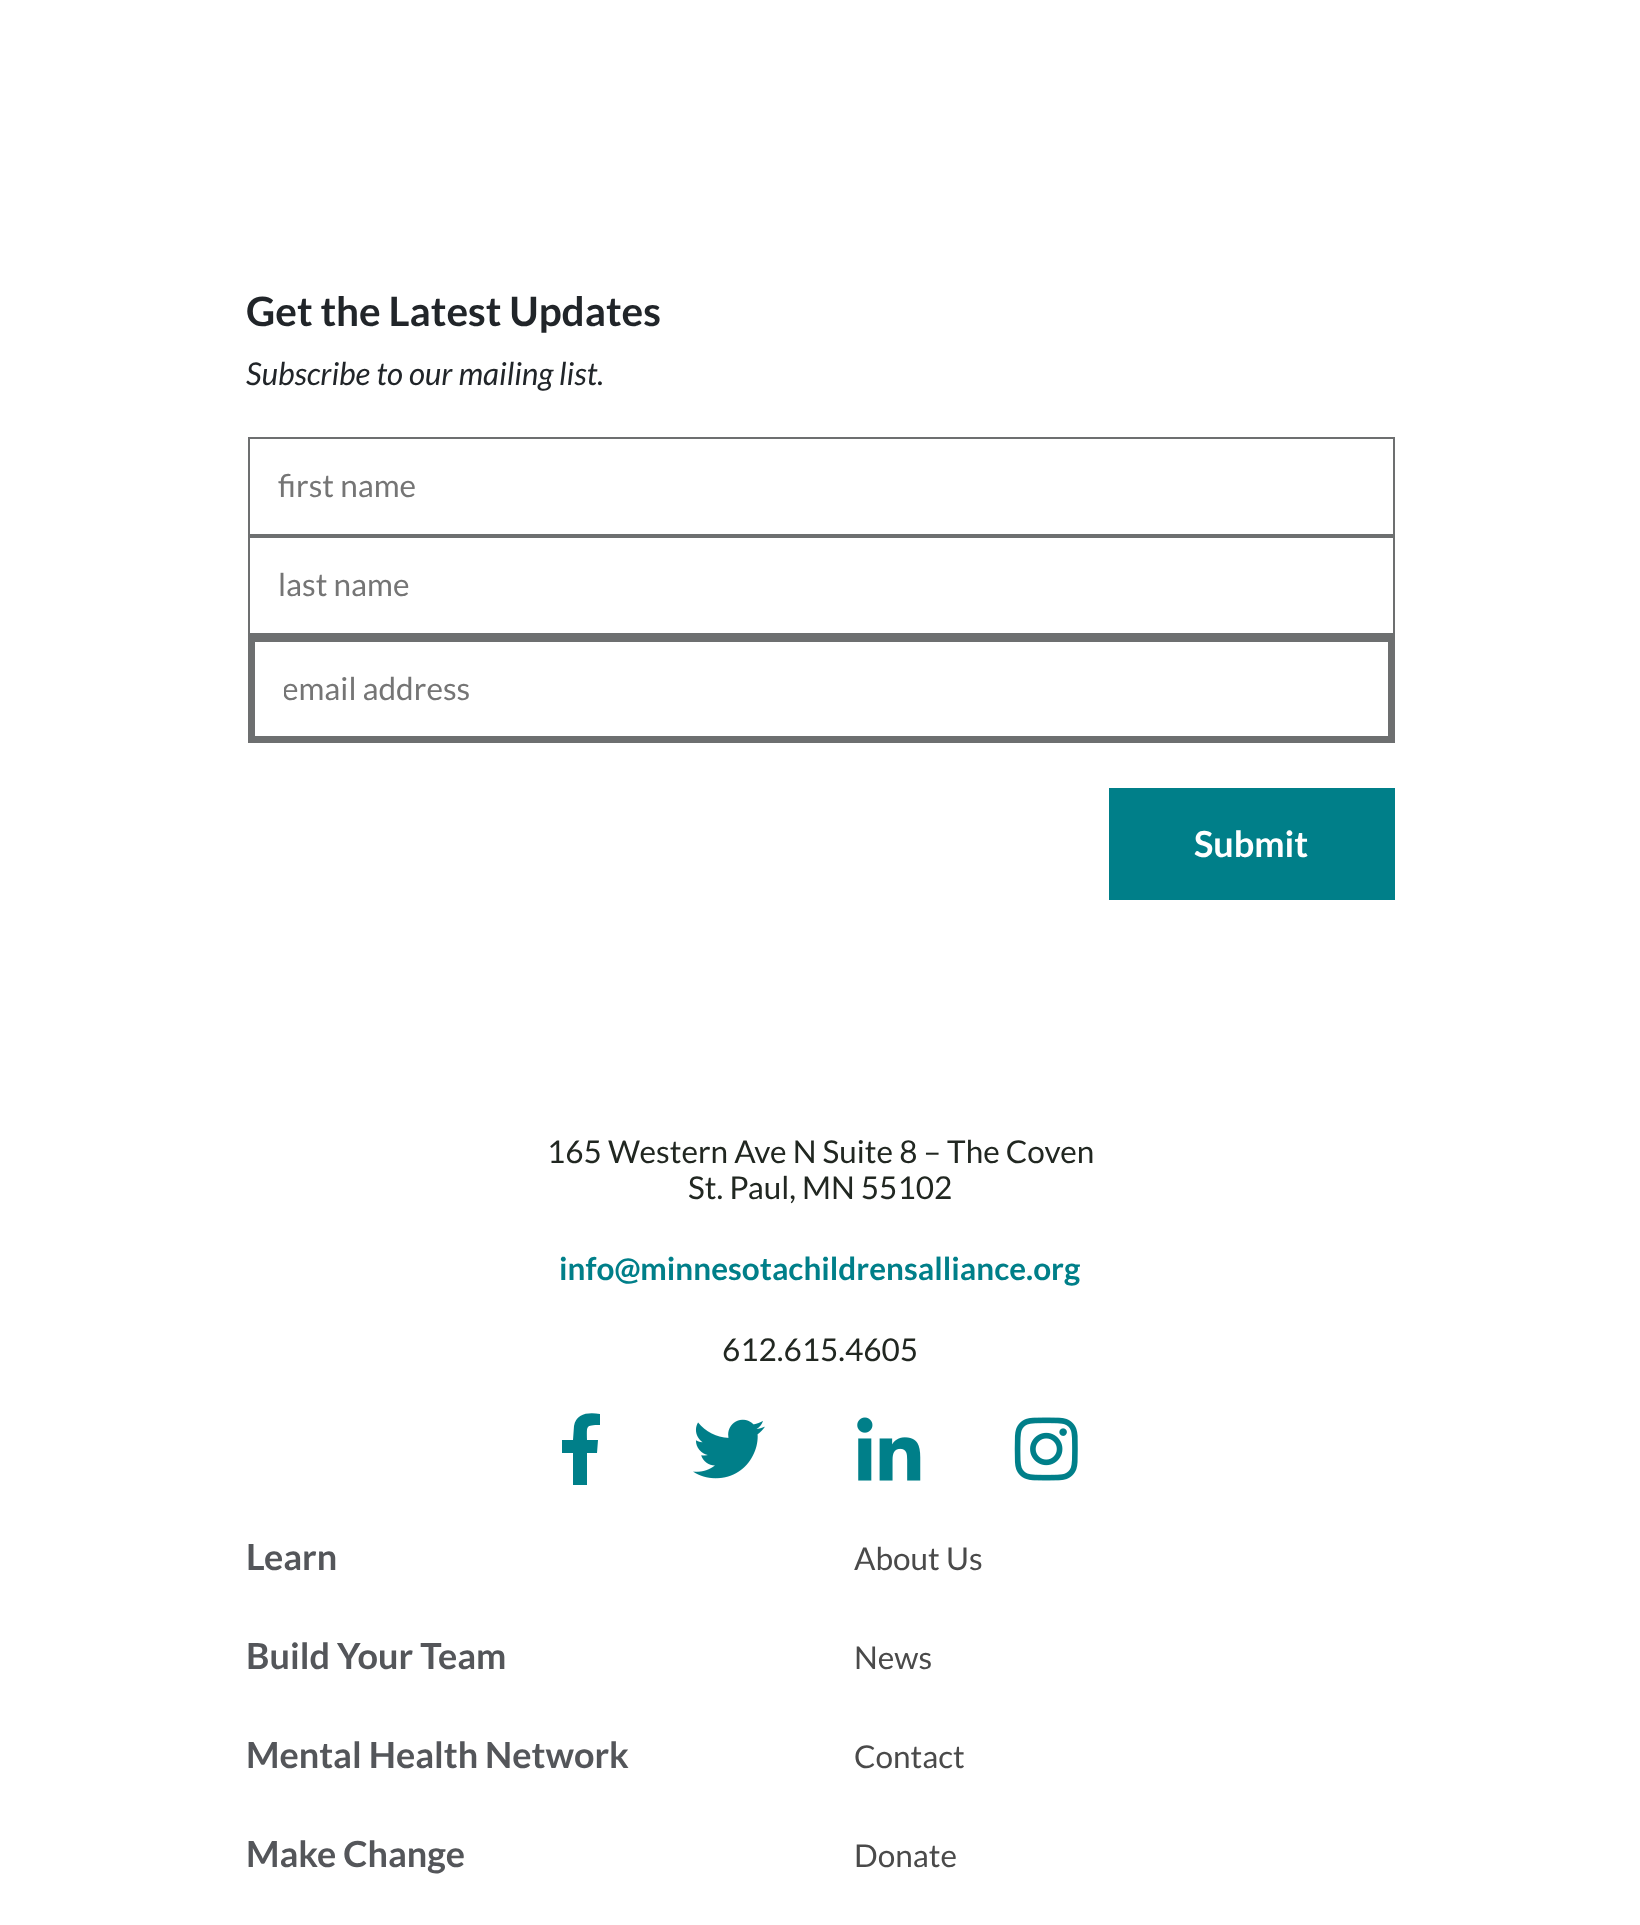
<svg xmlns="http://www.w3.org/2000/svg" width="1640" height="1925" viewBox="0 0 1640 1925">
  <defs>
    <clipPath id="clip1"><rect x="284" y="668" width="1075" height="39"/></clipPath>
  </defs>
  <rect width="100%" height="100%" fill="#ffffff"/>
  <text x="246" y="326" font-family="Lato" font-size="40.5" font-weight="bold" fill="#212529">Get the Latest Updates</text>
  <text x="246" y="385" font-family="Lato" font-size="31.5" font-style="italic" fill="#212529">Subscribe to our mailing list.</text>
  <rect x="249" y="438" width="1145" height="97" fill="none" stroke="#6d6f70" stroke-width="2"/>
  <text x="278" y="497" font-family="Lato" font-size="31.5" fill="#757575">first name</text>
  <rect x="249" y="537" width="1145" height="97" fill="none" stroke="#6d6f70" stroke-width="2"/>
  <text x="278" y="596" font-family="Lato" font-size="31.5" fill="#757575">last name</text>
  <rect x="251.5" y="638.5" width="1140" height="101" fill="none" stroke="#6d6f70" stroke-width="7"/>
  <g clip-path="url(#clip1)">
    <text x="282" y="700" font-family="Lato" font-size="31.5" fill="#757575">email address</text>
  </g>
  <rect x="1109" y="788" width="286" height="112" fill="#007f89"/>
  <text x="1194" y="857" font-family="Lato" font-size="36" font-weight="bold" fill="#ffffff">Submit</text>
  <text x="547" y="1163" font-family="Lato" font-size="31.5" fill="#212721">165 Western Ave N Suite 8 – The Coven</text>
  <text x="688" y="1199" font-family="Lato" font-size="31.5" fill="#212721">St. Paul, MN 55102</text>
  <text x="559" y="1280" font-family="Lato" font-size="31.5" font-weight="bold" fill="#007f89">info@minnesotachildrensalliance.org</text>
  <text x="722" y="1361" font-family="Lato" font-size="31.5" fill="#212721">612.615.4605</text>
  <path d="M573 1485V1453H562V1440H573L574 1426C576 1413 589 1412 600 1414V1425C585 1425 587 1426 587 1440H598L597 1453H587V1485Z" fill="#007f89"/>
  <image x="693" y="1419" width="72" height="60" href="img1.png"/>
  <image x="857" y="1417" width="64" height="64" href="img2.png"/>
  <image x="1014" y="1417" width="64" height="64" href="img3.png"/>
  <text x="246" y="1570" font-family="Lato" font-size="36" font-weight="bold" fill="#54565a">Learn</text>
  <text x="246" y="1669" font-family="Lato" font-size="36" font-weight="bold" fill="#54565a">Build Your Team</text>
  <text x="246" y="1768" font-family="Lato" font-size="36" font-weight="bold" fill="#54565a">Mental Health Network</text>
  <text x="246" y="1867" font-family="Lato" font-size="36" font-weight="bold" fill="#54565a">Make Change</text>
  <text x="854" y="1570" font-family="Lato" font-size="31.5" fill="#4a4a4a">About Us</text>
  <text x="854" y="1669" font-family="Lato" font-size="31.5" fill="#4a4a4a">News</text>
  <text x="854" y="1768" font-family="Lato" font-size="31.5" fill="#4a4a4a">Contact</text>
  <text x="854" y="1867" font-family="Lato" font-size="31.5" fill="#4a4a4a">Donate</text>
</svg>
